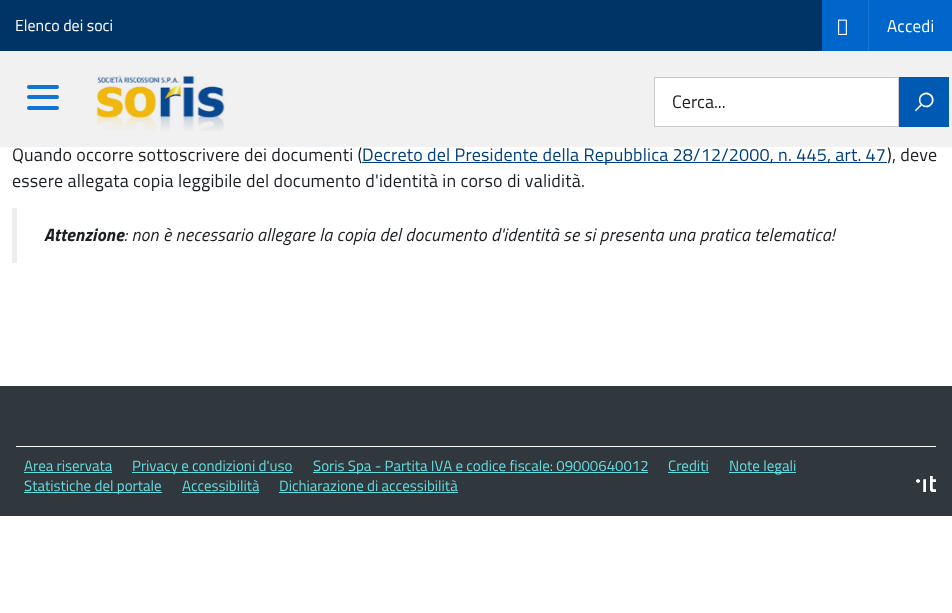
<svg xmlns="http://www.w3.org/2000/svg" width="952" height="613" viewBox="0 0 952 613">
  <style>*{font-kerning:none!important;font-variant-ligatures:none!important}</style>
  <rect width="100%" height="100%" fill="#ffffff"/>
  <rect x="0" y="0" width="822" height="51" fill="#003366"/>
  <text x="15" y="31" font-family="Titillium Web" font-size="16" fill="#ffffff">Elenco dei soci</text>
  <rect x="822" y="0" width="46" height="51" fill="#0066cc"/>
  <rect x="868" y="0" width="1" height="51" fill="#1a75d1"/>
  <image x="838" y="19" width="9" height="16" href="img1.png"/>
  <rect x="869" y="0" width="83" height="51" fill="#0066cc"/>
  <text x="887" y="32" font-family="Titillium Web" font-size="17" letter-spacing="0.18" fill="#ffffff">Accedi</text>
  <rect x="0" y="51" width="952" height="96" fill="#f0f1f0"/>
  <rect x="27" y="95" width="32" height="4" rx="2" fill="#1173d4"/>
  <rect x="27" y="85" width="32" height="4" rx="2" fill="#1173d4"/>
  <rect x="27" y="106" width="32" height="4" rx="2" fill="#1173d4"/>
  <image x="94" y="75" width="131" height="56" href="img2.png"/>
  <rect x="654.5" y="77.5" width="244" height="49" fill="#ffffff" stroke="#cccccc"/>
  <rect x="899" y="77" width="50" height="50" fill="#0059b3"/>
  <text x="915" y="110" font-family="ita" font-size="18" font-weight="bold" fill="#ffffff">🔍</text>
  <text x="672" y="108" font-family="Titillium Web" font-size="18" fill="#1c2024">Cerca...</text>
  <text x="12" y="161" font-family="Titillium Web" font-size="18" letter-spacing="0.18" fill="#1c2024">Quando occorre sottoscrivere dei documenti (</text>
  <rect x="362" y="162" width="525" height="1" fill="#004080"/>
  <text x="362" y="161" font-family="Titillium Web" font-size="18" letter-spacing="0.18" fill="#004080">Decreto del Presidente della Repubblica 28/12/2000, n. 445, art. 47</text>
  <text x="887" y="161" font-family="Titillium Web" font-size="18" letter-spacing="0.18" fill="#1c2024">), deve</text>
  <text x="12" y="187" font-family="Titillium Web" font-size="18" letter-spacing="0.18" fill="#1c2024">essere allegata copia leggibile del documento d'identità in corso di validità.</text>
  <rect x="12" y="208" width="5" height="55" fill="#eeeeee"/>
  <text x="44" y="241" font-family="Titillium Web" font-size="18" font-weight="bold" font-style="italic" letter-spacing="0.18" fill="#1c2024">Attenzione</text>
  <text x="124" y="241" font-family="Titillium Web" font-size="18" font-style="italic" letter-spacing="0.18" fill="#1c2024">: non è necessario allegare la copia del documento d'identità se si presenta una pratica telematica!</text>
  <rect x="0" y="386" width="952" height="130" fill="#30373d"/>
  <rect x="16" y="446" width="920" height="1" fill="#ffffff"/>
  <text x="24" y="471" font-family="Titillium Web" font-size="15" fill="#65dcdf">Area riservata</text>
  <rect x="24" y="472" width="88" height="1" fill="#65dcdf"/>
  <rect x="132" y="472" width="161" height="1" fill="#65dcdf"/>
  <text x="132" y="471" font-family="Titillium Web" font-size="15" fill="#65dcdf">Privacy e condizioni d'uso</text>
  <rect x="313" y="472" width="335" height="1" fill="#65dcdf"/>
  <text x="313" y="471" font-family="Titillium Web" font-size="15" fill="#65dcdf">Soris Spa - Partita IVA e codice fiscale: 09000640012</text>
  <text x="668" y="471" font-family="Titillium Web" font-size="15" fill="#65dcdf">Crediti</text>
  <rect x="668" y="472" width="41" height="1" fill="#65dcdf"/>
  <rect x="729" y="472" width="67" height="1" fill="#65dcdf"/>
  <text x="729" y="471" font-family="Titillium Web" font-size="15" fill="#65dcdf">Note legali</text>
  <rect x="24" y="492" width="138" height="1" fill="#65dcdf"/>
  <text x="24" y="491" font-family="Titillium Web" font-size="15" fill="#65dcdf">Statistiche del portale</text>
  <text x="182" y="491" font-family="Titillium Web" font-size="15" fill="#65dcdf">Accessibilità</text>
  <rect x="182" y="492" width="77" height="1" fill="#65dcdf"/>
  <text x="279" y="491" font-family="Titillium Web" font-size="15" fill="#65dcdf">Dichiarazione di accessibilità</text>
  <rect x="279" y="492" width="179" height="1" fill="#65dcdf"/>
  <image x="916" y="476" width="20" height="16" href="img3.png"/>
</svg>
